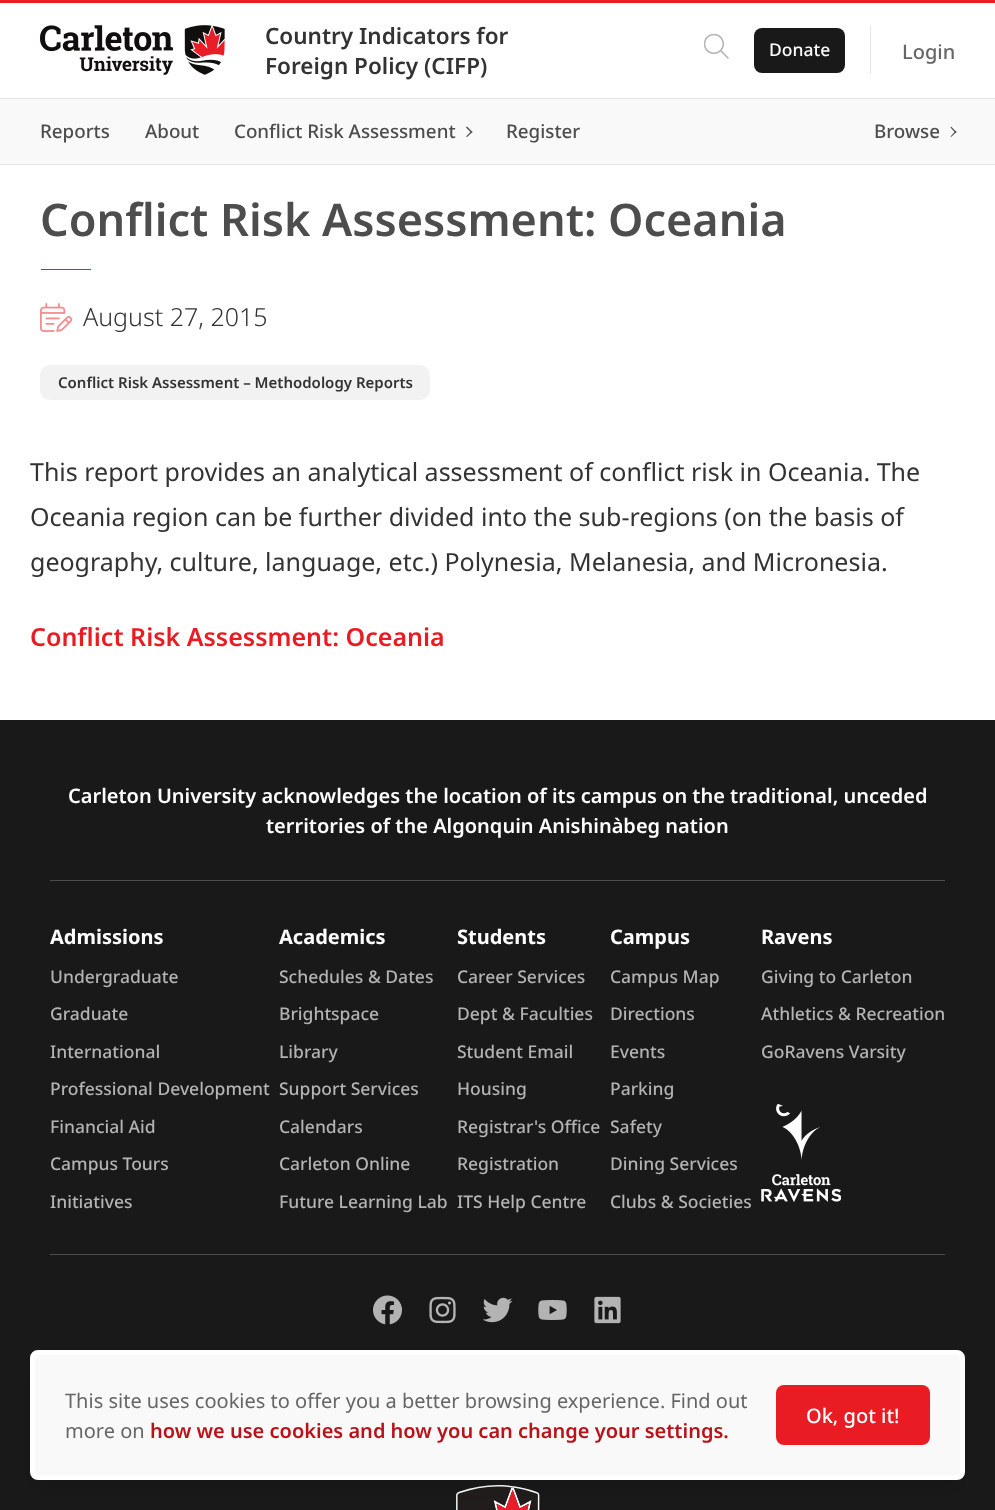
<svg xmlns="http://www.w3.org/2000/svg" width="995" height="1510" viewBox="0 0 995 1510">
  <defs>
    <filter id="blur1" x="-50%" y="-200%" width="200%" height="500%"><feGaussianBlur stdDeviation="9.5"/></filter>
  </defs>
  <rect width="100%" height="100%" fill="#ffffff"/>
  <rect x="0" y="0" width="995" height="3" fill="#e91c24"/>
  <rect x="0" y="164" width="995" height="1" fill="#e6e6e6"/>
  <image x="40" y="25" width="185" height="50" href="img1.png"/>
  <text x="265" y="44" font-family="Noto Sans" font-size="22.5" font-weight="600" fill="#333333">Country Indicators for</text>
  <text x="265" y="74" font-family="Noto Sans" font-size="22.5" font-weight="600" fill="#333333">Foreign Policy (CIFP)</text>
  <image x="704" y="34" width="25" height="25" href="img2.png"/>
  <rect x="754" y="28" width="91" height="45" rx="8" fill="#191919"/>
  <text x="769" y="56" font-family="Noto Sans" font-size="17.5" font-weight="500" fill="#ffffff">Donate</text>
  <rect x="870" y="26" width="1" height="48" fill="#e6e6e6"/>
  <text x="902" y="59" font-family="Noto Sans" font-size="20" font-weight="500" fill="#666666">Login</text>
  <rect x="0" y="99" width="995" height="65" fill="#f9f9f9"/>
  <rect x="0" y="98" width="995" height="1" fill="#e6e6e6"/>
  <text x="40" y="138" font-family="Noto Sans" font-size="18.75" font-weight="500" fill="#4d4d4d">Reports</text>
  <text x="145" y="138" font-family="Noto Sans" font-size="18.75" font-weight="500" fill="#4d4d4d">About</text>
  <text x="234" y="138" font-family="Noto Sans" font-size="18.75" font-weight="500" fill="#4d4d4d">Conflict Risk Assessment</text>
  <path d="M472.5 132L467 137L466 136.5L471.5 131Z" fill="#4d4d4d"/>
  <path d="M472.5 132L471.5 133L466 127.5L467 126.5Z" fill="#4d4d4d"/>
  <text x="506" y="138" font-family="Noto Sans" font-size="18.75" font-weight="500" fill="#4d4d4d">Register</text>
  <text x="874" y="138" font-family="Noto Sans" font-size="18.75" font-weight="500" fill="#4d4d4d">Browse</text>
  <path d="M956.5 132L951 137L950.5 136.5L955.5 131Z" fill="#4d4d4d"/>
  <path d="M956.5 132L955.5 133L950.5 127.5L951 126.5Z" fill="#4d4d4d"/>
  <text x="40" y="236" font-family="Noto Sans" font-size="45" font-weight="600" fill="#4d4d4d">Conflict Risk Assessment: Oceania</text>
  <rect x="41" y="269" width="50" height="1" fill="#e91c24"/>
  <image x="40" y="303" width="33" height="29" href="img3.png"/>
  <text x="83" y="326" font-family="Noto Sans" font-size="25" font-weight="300" fill="#333333">August 27, 2015</text>
  <rect x="40" y="365" width="390" height="35" rx="10" fill="#f2f2f2"/>
  <text x="58" y="388" font-family="Noto Sans" font-size="15" font-weight="600" fill="#333333">Conflict Risk Assessment – Methodology Reports</text>
  <text x="30" y="481" font-family="Noto Sans" font-size="25" fill="#333333">This report provides an analytical assessment of conflict risk in Oceania. The</text>
  <text x="30" y="526" font-family="Noto Sans" font-size="25" fill="#333333">Oceania region can be further divided into the sub-regions (on the basis of</text>
  <text x="30" y="571" font-family="Noto Sans" font-size="25" fill="#333333">geography, culture, language, etc.) Polynesia, Melanesia, and Micronesia.</text>
  <text x="30" y="646" font-family="Noto Sans" font-size="25" font-weight="600" fill="#e91c24">Conflict Risk Assessment: Oceania</text>
  <rect x="0" y="720" width="995" height="790" fill="#191919"/>
  <rect x="50" y="880" width="895" height="1" fill="#4d4d4d"/>
  <text x="68" y="803" font-family="Noto Sans" font-size="20" font-weight="600" fill="#ffffff">Carleton University acknowledges the location of its campus on the traditional, unceded</text>
  <text x="266" y="833" font-family="Noto Sans" font-size="20" font-weight="600" fill="#ffffff">territories of the Algonquin Anishinàbeg nation</text>
  <rect x="50" y="1254" width="895" height="1" fill="#4d4d4d"/>
  <text x="50" y="944" font-family="Noto Sans" font-size="20" font-weight="bold" fill="#ffffff">Admissions</text>
  <text x="50" y="983" font-family="Noto Sans" font-size="17.5" font-weight="500" fill="#b3b3b3">Undergraduate</text>
  <text x="50" y="1020" font-family="Noto Sans" font-size="17.5" font-weight="500" fill="#b3b3b3">Graduate</text>
  <text x="50" y="1058" font-family="Noto Sans" font-size="17.5" font-weight="500" fill="#b3b3b3">International</text>
  <text x="50" y="1095" font-family="Noto Sans" font-size="17.5" font-weight="500" fill="#b3b3b3">Professional Development</text>
  <text x="50" y="1133" font-family="Noto Sans" font-size="17.5" font-weight="500" fill="#b3b3b3">Financial Aid</text>
  <text x="50" y="1170" font-family="Noto Sans" font-size="17.5" font-weight="500" fill="#b3b3b3">Campus Tours</text>
  <text x="50" y="1208" font-family="Noto Sans" font-size="17.5" font-weight="500" fill="#b3b3b3">Initiatives</text>
  <text x="279" y="944" font-family="Noto Sans" font-size="20" font-weight="bold" fill="#ffffff">Academics</text>
  <text x="279" y="983" font-family="Noto Sans" font-size="17.5" font-weight="500" fill="#b3b3b3">Schedules &amp; Dates</text>
  <text x="279" y="1020" font-family="Noto Sans" font-size="17.5" font-weight="500" fill="#b3b3b3">Brightspace</text>
  <text x="279" y="1058" font-family="Noto Sans" font-size="17.5" font-weight="500" fill="#b3b3b3">Library</text>
  <text x="279" y="1095" font-family="Noto Sans" font-size="17.5" font-weight="500" fill="#b3b3b3">Support Services</text>
  <text x="279" y="1133" font-family="Noto Sans" font-size="17.5" font-weight="500" fill="#b3b3b3">Calendars</text>
  <text x="279" y="1170" font-family="Noto Sans" font-size="17.5" font-weight="500" fill="#b3b3b3">Carleton Online</text>
  <text x="279" y="1208" font-family="Noto Sans" font-size="17.5" font-weight="500" fill="#b3b3b3">Future Learning Lab</text>
  <text x="457" y="944" font-family="Noto Sans" font-size="20" font-weight="bold" fill="#ffffff">Students</text>
  <text x="457" y="983" font-family="Noto Sans" font-size="17.5" font-weight="500" fill="#b3b3b3">Career Services</text>
  <text x="457" y="1020" font-family="Noto Sans" font-size="17.5" font-weight="500" fill="#b3b3b3">Dept &amp; Faculties</text>
  <text x="457" y="1058" font-family="Noto Sans" font-size="17.5" font-weight="500" fill="#b3b3b3">Student Email</text>
  <text x="457" y="1095" font-family="Noto Sans" font-size="17.5" font-weight="500" fill="#b3b3b3">Housing</text>
  <text x="457" y="1133" font-family="Noto Sans" font-size="17.5" font-weight="500" fill="#b3b3b3">Registrar's Office</text>
  <text x="457" y="1170" font-family="Noto Sans" font-size="17.5" font-weight="500" fill="#b3b3b3">Registration</text>
  <text x="457" y="1208" font-family="Noto Sans" font-size="17.5" font-weight="500" fill="#b3b3b3">ITS Help Centre</text>
  <text x="610" y="944" font-family="Noto Sans" font-size="20" font-weight="bold" fill="#ffffff">Campus</text>
  <text x="610" y="983" font-family="Noto Sans" font-size="17.5" font-weight="500" fill="#b3b3b3">Campus Map</text>
  <text x="610" y="1020" font-family="Noto Sans" font-size="17.5" font-weight="500" fill="#b3b3b3">Directions</text>
  <text x="610" y="1058" font-family="Noto Sans" font-size="17.5" font-weight="500" fill="#b3b3b3">Events</text>
  <text x="610" y="1095" font-family="Noto Sans" font-size="17.5" font-weight="500" fill="#b3b3b3">Parking</text>
  <text x="610" y="1133" font-family="Noto Sans" font-size="17.5" font-weight="500" fill="#b3b3b3">Safety</text>
  <text x="610" y="1170" font-family="Noto Sans" font-size="17.5" font-weight="500" fill="#b3b3b3">Dining Services</text>
  <text x="610" y="1208" font-family="Noto Sans" font-size="17.5" font-weight="500" fill="#b3b3b3">Clubs &amp; Societies</text>
  <text x="761" y="944" font-family="Noto Sans" font-size="20" font-weight="bold" fill="#ffffff">Ravens</text>
  <text x="761" y="983" font-family="Noto Sans" font-size="17.5" font-weight="500" fill="#b3b3b3">Giving to Carleton</text>
  <text x="761" y="1020" font-family="Noto Sans" font-size="17.5" font-weight="500" fill="#b3b3b3">Athletics &amp; Recreation</text>
  <text x="761" y="1058" font-family="Noto Sans" font-size="17.5" font-weight="500" fill="#b3b3b3">GoRavens Varsity</text>
  <image x="761" y="1104" width="80" height="98" href="img4.png"/>
  <image x="373" y="1295" width="29" height="30" href="img5.png"/>
  <image x="429" y="1296" width="27" height="28" href="img6.png"/>
  <image x="483" y="1297" width="30" height="26" href="img7.png"/>
  <image x="538" y="1300" width="29" height="20" href="img8.png"/>
  <image x="594" y="1296" width="27" height="28" href="img9.png"/>
  <image x="456" y="1485" width="84" height="25" href="img10.png"/>
  <rect x="34" y="1366" width="927" height="123" rx="4" fill="#000000" fill-opacity="0.1" filter="url(#blur1)"/>
  <rect x="32.5" y="1352.5" width="930" height="125" rx="5.5" fill="#f9f9f9" stroke="#ffffff" stroke-width="5"/>
  <text x="65" y="1408" font-family="Noto Sans" font-size="20" fill="#666666">This site uses cookies to offer you a better browsing experience. Find out</text>
  <text x="65" y="1438" font-family="Noto Sans" font-size="20" fill="#666666">more on</text>
  <text x="150" y="1438" font-family="Noto Sans" font-size="20" font-weight="600" fill="#bb1219">how we use cookies and how you can change your settings.</text>
  <rect x="776" y="1385" width="154" height="60" rx="8" fill="#e91c24"/>
  <text x="806" y="1423" font-family="Noto Sans" font-size="20" font-weight="500" fill="#ffffff">Ok, got it!</text>
</svg>
